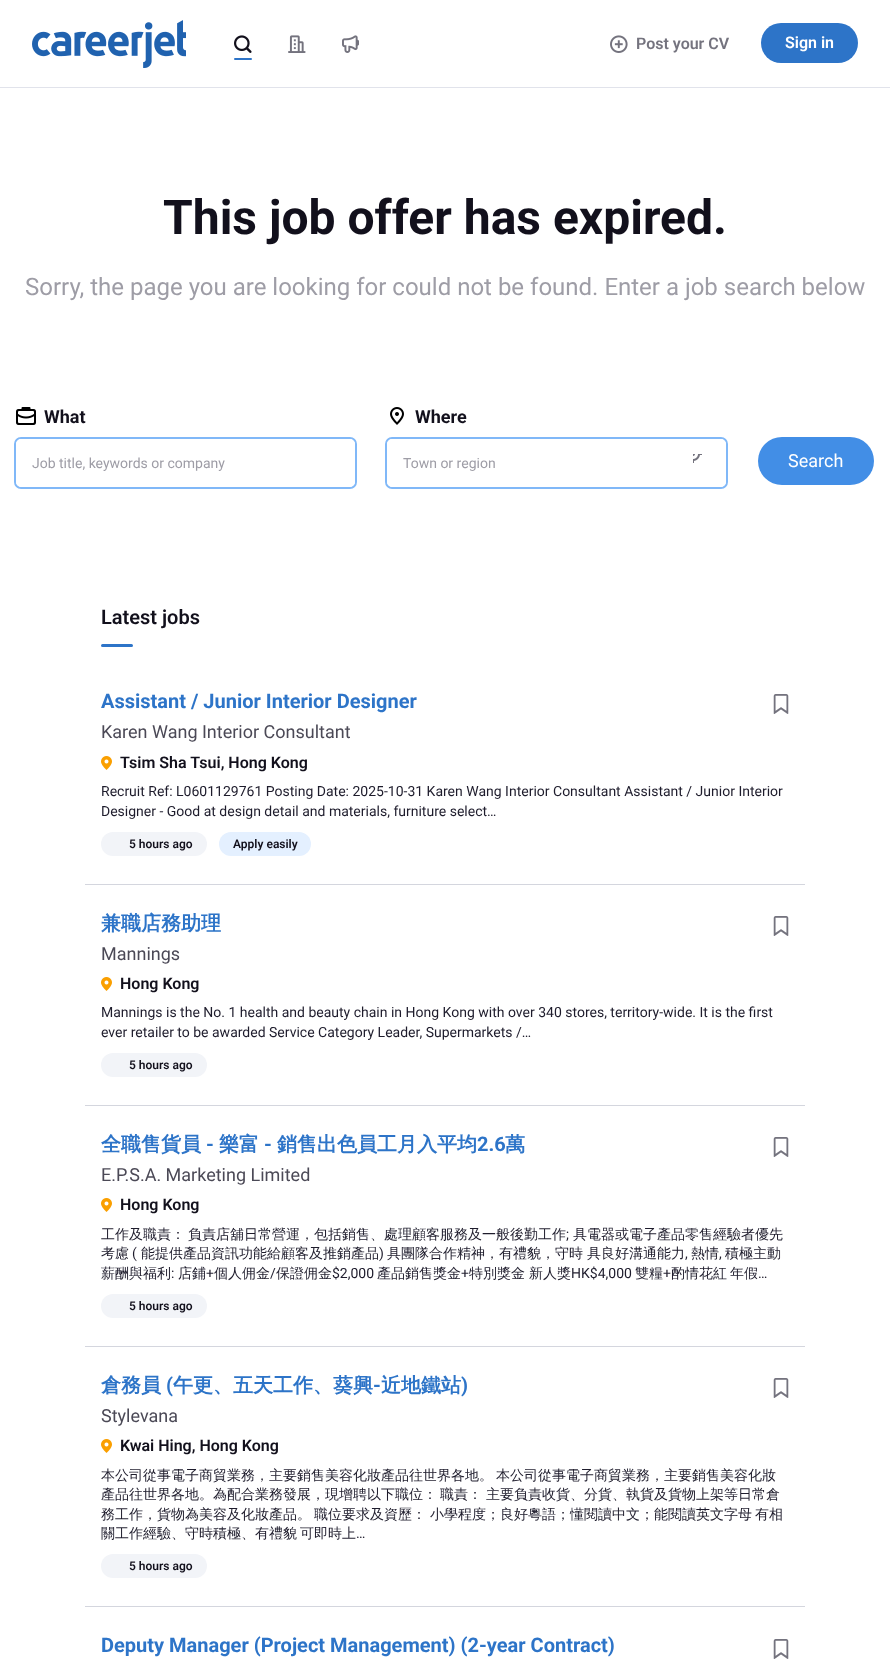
<svg xmlns="http://www.w3.org/2000/svg" width="890" height="1671" viewBox="0 0 890 1671">
  <rect width="100%" height="100%" fill="#ffffff"/>
  <rect x="0" y="87" width="890" height="1" fill="#e1e3eb"/>
  <image x="32" y="20" width="154" height="48" href="img1.png"/>
  <image x="234" y="35" width="18" height="18" href="img2.png"/>
  <rect x="234" y="58" width="18" height="2" rx="1" fill="#2d74c8"/>
  <image x="288" y="35" width="18" height="18" href="img3.png"/>
  <image x="342" y="35" width="17" height="18" href="img4.png"/>
  <image x="610" y="35" width="18" height="18" href="img5.png"/>
  <text x="636" y="49" font-family="Roboto" font-size="16" font-weight="600" fill="#74737e">Post your CV</text>
  <rect x="761" y="23" width="97" height="40" rx="20" fill="#2d74c8"/>
  <text x="785" y="48" font-family="Roboto" font-size="16" font-weight="600" fill="#ffffff">Sign in</text>
  <text x="163" y="234" font-family="Roboto" font-size="48" font-weight="bold" fill="#12101c">This job offer has expired.</text>
  <text x="25" y="295" font-family="Roboto" font-size="24" fill="#9e9da6">Sorry, the page you are looking for could not be found. Enter a job search below</text>
  <image x="16" y="407" width="20" height="18" href="img6.png"/>
  <text x="44" y="423" font-family="Roboto" font-size="18" font-weight="bold" fill="#12101c">What</text>
  <rect x="15" y="438" width="341" height="50" rx="6" fill="none" stroke="#80b8f8" stroke-width="2"/>
  <rect x="16.5" y="439.5" width="338" height="47" rx="4.5" fill="#ffffff" stroke="#ffffff"/>
  <text x="32" y="468" font-family="Roboto" font-size="14" fill="#9e9da6">Job title, keywords or company</text>
  <image x="390" y="407" width="14" height="18" href="img7.png"/>
  <text x="415" y="423" font-family="Roboto" font-size="18" font-weight="bold" fill="#12101c">Where</text>
  <rect x="386" y="438" width="341" height="50" rx="6" fill="none" stroke="#80b8f8" stroke-width="2"/>
  <rect x="387.5" y="439.5" width="338" height="47" rx="4.5" fill="#ffffff" stroke="#ffffff"/>
  <text x="403" y="468" font-family="Roboto" font-size="14" fill="#9e9da6">Town or region</text>
  <image x="693" y="454" width="9" height="9" href="img8.png"/>
  <rect x="758" y="437" width="116" height="48" rx="24" fill="#428ee6"/>
  <text x="788" y="467" font-family="Roboto" font-size="18" fill="#ffffff">Search</text>
  <text x="101" y="624" font-family="Roboto" font-size="20" font-weight="600" fill="#12101c">Latest jobs</text>
  <rect x="101" y="644" width="32" height="3" rx="1.5" fill="#2d74c8"/>
  <rect x="85" y="884" width="720" height="1" fill="#d4d6de"/>
  <text x="101" y="708" font-family="Roboto" font-size="20" font-weight="bold" fill="#2d74c8">Assistant / Junior Interior Designer</text>
  <image x="773" y="694" width="16" height="20" href="img9.png"/>
  <text x="101" y="738" font-family="Roboto" font-size="18" fill="#4b4956">Karen Wang Interior Consultant</text>
  <image x="101" y="756" width="11" height="14" href="img10.png"/>
  <text x="120" y="768" font-family="Roboto" font-size="16" font-weight="600" fill="#12101c">Tsim Sha Tsui, Hong Kong</text>
  <text x="101" y="796" font-family="Roboto" font-size="14" fill="#1e1c2c">Recruit Ref: L0601129761 Posting Date: 2025-10-31 Karen Wang Interior Consultant Assistant / Junior Interior</text>
  <text x="101" y="816" font-family="Roboto" font-size="14" fill="#1e1c2c">Designer - Good at design detail and materials, furniture select…</text>
  <rect x="101" y="832" width="106" height="24" rx="12" fill="#f2f4f8"/>
  <text x="129" y="848" font-family="Roboto" font-size="12" font-weight="600" fill="#12101c">5 hours ago</text>
  <rect x="219" y="832" width="92" height="24" rx="12" fill="#e4f0ff"/>
  <text x="233" y="848" font-family="Roboto" font-size="12" font-weight="600" fill="#12101c">Apply easily</text>
  <rect x="85" y="1105" width="720" height="1" fill="#d4d6de"/>
  <text x="101" y="930" font-family="WenQuanYi Zen Hei" font-size="20" font-weight="bold" fill="#2d74c8">兼職店務助理</text>
  <image x="773" y="916" width="16" height="20" href="img9.png"/>
  <text x="101" y="960" font-family="Roboto" font-size="18" fill="#4b4956">Mannings</text>
  <image x="101" y="977" width="11" height="14" href="img10.png"/>
  <text x="120" y="989" font-family="Roboto" font-size="16" font-weight="600" fill="#12101c">Hong Kong</text>
  <text x="101" y="1017" font-family="Roboto" font-size="14" fill="#1e1c2c">Mannings is the No. 1 health and beauty chain in Hong Kong with over 340 stores, territory-wide. It is the first</text>
  <text x="101" y="1037" font-family="Roboto" font-size="14" fill="#1e1c2c">ever retailer to be awarded Service Category Leader, Supermarkets /…</text>
  <rect x="101" y="1053" width="106" height="24" rx="12" fill="#f2f4f8"/>
  <text x="129" y="1069" font-family="Roboto" font-size="12" font-weight="600" fill="#12101c">5 hours ago</text>
  <rect x="85" y="1346" width="720" height="1" fill="#d4d6de"/>
  <text x="101" y="1151" font-family="WenQuanYi Zen Hei" font-size="20" font-weight="bold" fill="#2d74c8">全職售貨員</text>
  <text x="206" y="1151" font-family="Roboto" font-size="20" font-weight="bold" fill="#2d74c8">-</text>
  <text x="219" y="1151" font-family="WenQuanYi Zen Hei" font-size="20" font-weight="bold" fill="#2d74c8">樂富</text>
  <text x="264" y="1151" font-family="Roboto" font-size="20" font-weight="bold" fill="#2d74c8">-</text>
  <text x="277" y="1151" font-family="WenQuanYi Zen Hei" font-size="20" font-weight="bold" fill="#2d74c8">銷售出色員工月入平均</text>
  <text x="477" y="1151" font-family="Roboto" font-size="20" font-weight="bold" fill="#2d74c8">2.6</text>
  <text x="505" y="1151" font-family="WenQuanYi Zen Hei" font-size="20" font-weight="bold" fill="#2d74c8">萬</text>
  <image x="773" y="1137" width="16" height="20" href="img9.png"/>
  <text x="101" y="1181" font-family="Roboto" font-size="18" fill="#4b4956">E.P.S.A. Marketing Limited</text>
  <image x="101" y="1198" width="11" height="14" href="img10.png"/>
  <text x="120" y="1210" font-family="Roboto" font-size="16" font-weight="600" fill="#12101c">Hong Kong</text>
  <text x="101" y="1239" font-family="WenQuanYi Zen Hei" font-size="14" font-weight="500" fill="#1e1c2c">工作及職責：</text>
  <text x="188" y="1239" font-family="WenQuanYi Zen Hei" font-size="14" font-weight="500" fill="#1e1c2c">負責店舖日常營運，包括銷售、處理顧客服務及一般後勤工作</text>
  <text x="566" y="1239" font-family="Roboto" font-size="14" fill="#1e1c2c">;</text>
  <text x="573" y="1239" font-family="WenQuanYi Zen Hei" font-size="14" font-weight="500" fill="#1e1c2c">具電器或電子產品零售經驗者優先</text>
  <text x="101" y="1258" font-family="WenQuanYi Zen Hei" font-size="14" font-weight="500" fill="#1e1c2c">考慮</text>
  <text x="132" y="1258" font-family="Roboto" font-size="14" fill="#1e1c2c">(</text>
  <text x="141" y="1258" font-family="WenQuanYi Zen Hei" font-size="14" font-weight="500" fill="#1e1c2c">能提供產品資訊功能給顧客及推銷產品</text>
  <text x="379" y="1258" font-family="Roboto" font-size="14" fill="#1e1c2c">)</text>
  <text x="387" y="1258" font-family="WenQuanYi Zen Hei" font-size="14" font-weight="500" fill="#1e1c2c">具團隊合作精神，有禮貌，守時</text>
  <text x="587" y="1258" font-family="WenQuanYi Zen Hei" font-size="14" font-weight="500" fill="#1e1c2c">具良好溝通能力</text>
  <text x="685" y="1258" font-family="Roboto" font-size="14" fill="#1e1c2c">,</text>
  <text x="691" y="1258" font-family="WenQuanYi Zen Hei" font-size="14" font-weight="500" fill="#1e1c2c">熱情</text>
  <text x="719" y="1258" font-family="Roboto" font-size="14" fill="#1e1c2c">,</text>
  <text x="725" y="1258" font-family="WenQuanYi Zen Hei" font-size="14" font-weight="500" fill="#1e1c2c">積極主動</text>
  <text x="101" y="1278" font-family="WenQuanYi Zen Hei" font-size="14" font-weight="500" fill="#1e1c2c">薪酬與福利</text>
  <text x="171" y="1278" font-family="Roboto" font-size="14" fill="#1e1c2c">:</text>
  <text x="178" y="1278" font-family="WenQuanYi Zen Hei" font-size="14" font-weight="500" fill="#1e1c2c">店鋪</text>
  <text x="206" y="1278" font-family="Roboto" font-size="14" fill="#1e1c2c">+</text>
  <text x="214" y="1278" font-family="WenQuanYi Zen Hei" font-size="14" font-weight="500" fill="#1e1c2c">個人佣金</text>
  <text x="270" y="1278" font-family="Roboto" font-size="14" fill="#1e1c2c">/</text>
  <text x="276" y="1278" font-family="WenQuanYi Zen Hei" font-size="14" font-weight="500" fill="#1e1c2c">保證佣金</text>
  <text x="332" y="1278" font-family="Roboto" font-size="14" fill="#1e1c2c">$2,000</text>
  <text x="377" y="1278" font-family="WenQuanYi Zen Hei" font-size="14" font-weight="500" fill="#1e1c2c">產品銷售獎金</text>
  <text x="461" y="1278" font-family="Roboto" font-size="14" fill="#1e1c2c">+</text>
  <text x="469" y="1278" font-family="WenQuanYi Zen Hei" font-size="14" font-weight="500" fill="#1e1c2c">特別獎金</text>
  <text x="529" y="1278" font-family="WenQuanYi Zen Hei" font-size="14" font-weight="500" fill="#1e1c2c">新人獎</text>
  <text x="571" y="1278" font-family="Roboto" font-size="14" fill="#1e1c2c">HK$4,000</text>
  <text x="635" y="1278" font-family="WenQuanYi Zen Hei" font-size="14" font-weight="500" fill="#1e1c2c">雙糧</text>
  <text x="663" y="1278" font-family="Roboto" font-size="14" fill="#1e1c2c">+</text>
  <text x="671" y="1278" font-family="WenQuanYi Zen Hei" font-size="14" font-weight="500" fill="#1e1c2c">酌情花紅</text>
  <text x="730" y="1278" font-family="WenQuanYi Zen Hei" font-size="14" font-weight="500" fill="#1e1c2c">年假</text>
  <text x="758" y="1278" font-family="Roboto" font-size="14" fill="#1e1c2c">…</text>
  <rect x="101" y="1294" width="106" height="24" rx="12" fill="#f2f4f8"/>
  <text x="129" y="1310" font-family="Roboto" font-size="12" font-weight="600" fill="#12101c">5 hours ago</text>
  <rect x="85" y="1606" width="720" height="1" fill="#d4d6de"/>
  <text x="101" y="1392" font-family="WenQuanYi Zen Hei" font-size="20" font-weight="bold" fill="#2d74c8">倉務員</text>
  <text x="166" y="1392" font-family="Roboto" font-size="20" font-weight="bold" fill="#2d74c8">(</text>
  <text x="173" y="1392" font-family="WenQuanYi Zen Hei" font-size="20" font-weight="bold" fill="#2d74c8">午更、五天工作、葵興</text>
  <text x="373" y="1392" font-family="Roboto" font-size="20" font-weight="bold" fill="#2d74c8">-</text>
  <text x="381" y="1392" font-family="WenQuanYi Zen Hei" font-size="20" font-weight="bold" fill="#2d74c8">近地鐵站</text>
  <text x="461" y="1392" font-family="Roboto" font-size="20" font-weight="bold" fill="#2d74c8">)</text>
  <image x="773" y="1378" width="16" height="20" href="img9.png"/>
  <text x="101" y="1422" font-family="Roboto" font-size="18" fill="#4b4956">Stylevana</text>
  <image x="101" y="1439" width="11" height="14" href="img10.png"/>
  <text x="120" y="1451" font-family="Roboto" font-size="16" font-weight="600" fill="#12101c">Kwai Hing, Hong Kong</text>
  <text x="101" y="1480" font-family="WenQuanYi Zen Hei" font-size="14" font-weight="500" fill="#1e1c2c">本公司從事電子商貿業務，主要銷售美容化妝產品往世界各地。</text>
  <text x="496" y="1480" font-family="WenQuanYi Zen Hei" font-size="14" font-weight="500" fill="#1e1c2c">本公司從事電子商貿業務，主要銷售美容化妝</text>
  <text x="101" y="1499" font-family="WenQuanYi Zen Hei" font-size="14" font-weight="500" fill="#1e1c2c">產品往世界各地。為配合業務發展，現增聘以下職位：</text>
  <text x="440" y="1499" font-family="WenQuanYi Zen Hei" font-size="14" font-weight="500" fill="#1e1c2c">職責：</text>
  <text x="486" y="1499" font-family="WenQuanYi Zen Hei" font-size="14" font-weight="500" fill="#1e1c2c">主要負責收貨、分貨、執貨及貨物上架等日常倉</text>
  <text x="101" y="1519" font-family="WenQuanYi Zen Hei" font-size="14" font-weight="500" fill="#1e1c2c">務工作，貨物為美容及化妝產品。</text>
  <text x="314" y="1519" font-family="WenQuanYi Zen Hei" font-size="14" font-weight="500" fill="#1e1c2c">職位要求及資歷：</text>
  <text x="430" y="1519" font-family="WenQuanYi Zen Hei" font-size="14" font-weight="500" fill="#1e1c2c">小學程度；良好粵語；懂閱讀中文；能閱讀英文字母</text>
  <text x="755" y="1519" font-family="WenQuanYi Zen Hei" font-size="14" font-weight="500" fill="#1e1c2c">有相</text>
  <text x="101" y="1538" font-family="WenQuanYi Zen Hei" font-size="14" font-weight="500" fill="#1e1c2c">關工作經驗、守時積極、有禮貌</text>
  <text x="300" y="1538" font-family="WenQuanYi Zen Hei" font-size="14" font-weight="500" fill="#1e1c2c">可即時上</text>
  <text x="356" y="1538" font-family="Roboto" font-size="14" fill="#1e1c2c">…</text>
  <rect x="101" y="1554" width="106" height="24" rx="12" fill="#f2f4f8"/>
  <text x="129" y="1570" font-family="Roboto" font-size="12" font-weight="600" fill="#12101c">5 hours ago</text>
  <text x="101" y="1652" font-family="Roboto" font-size="20" font-weight="bold" fill="#2d74c8">Deputy Manager (Project Management) (2-year Contract)</text>
  <image x="773" y="1639" width="16" height="20" href="img9.png"/>
</svg>
